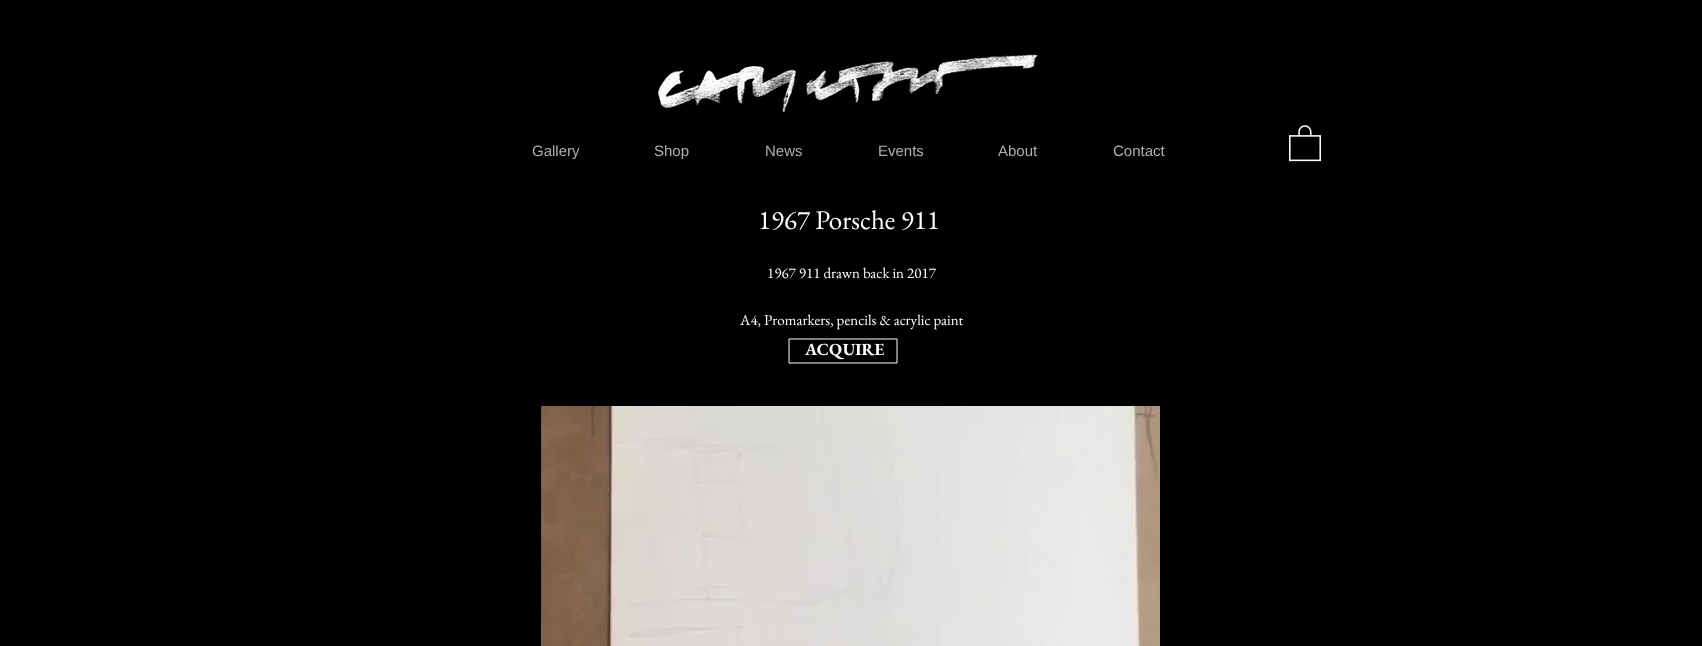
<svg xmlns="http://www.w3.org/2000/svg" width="1702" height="646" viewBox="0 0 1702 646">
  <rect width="100%" height="100%" fill="#000000"/>
  <image x="657" y="54" width="381" height="59" href="img1.png"/>
  <text x="532" y="156" font-family="Liberation Sans" font-size="15" fill="#afafaf">Gallery</text>
  <text x="654" y="156" font-family="Liberation Sans" font-size="15" fill="#afafaf">Shop</text>
  <text x="765" y="156" font-family="Liberation Sans" font-size="15" fill="#afafaf">News</text>
  <text x="878" y="156" font-family="Liberation Sans" font-size="15" fill="#afafaf">Events</text>
  <text x="998" y="156" font-family="Liberation Sans" font-size="15" fill="#afafaf">About</text>
  <text x="1113" y="156" font-family="Liberation Sans" font-size="15" fill="#afafaf">Contact</text>
  <image x="1289" y="125" width="32" height="37" href="img2.png"/>
  <text x="758" y="229" font-family="EB Garamond" font-size="27" fill="#ffffff">1967 Porsche 911</text>
  <text x="767" y="278" font-family="EB Garamond" font-size="15" fill="#ffffff">1967 911 drawn back in 2017</text>
  <text x="740" y="325" font-family="EB Garamond" font-size="15" fill="#ffffff">A4, Promarkers, pencils &amp; acrylic paint</text>
  <path d="M897 339V363H789V339Z" fill="none" stroke="#ffffff"/>
  <text x="805" y="355" font-family="EB Garamond" font-size="17" font-weight="bold" fill="#ffffff">ACQUIRE</text>
  <image x="541" y="406" width="619" height="240" href="img3.png"/>
</svg>
